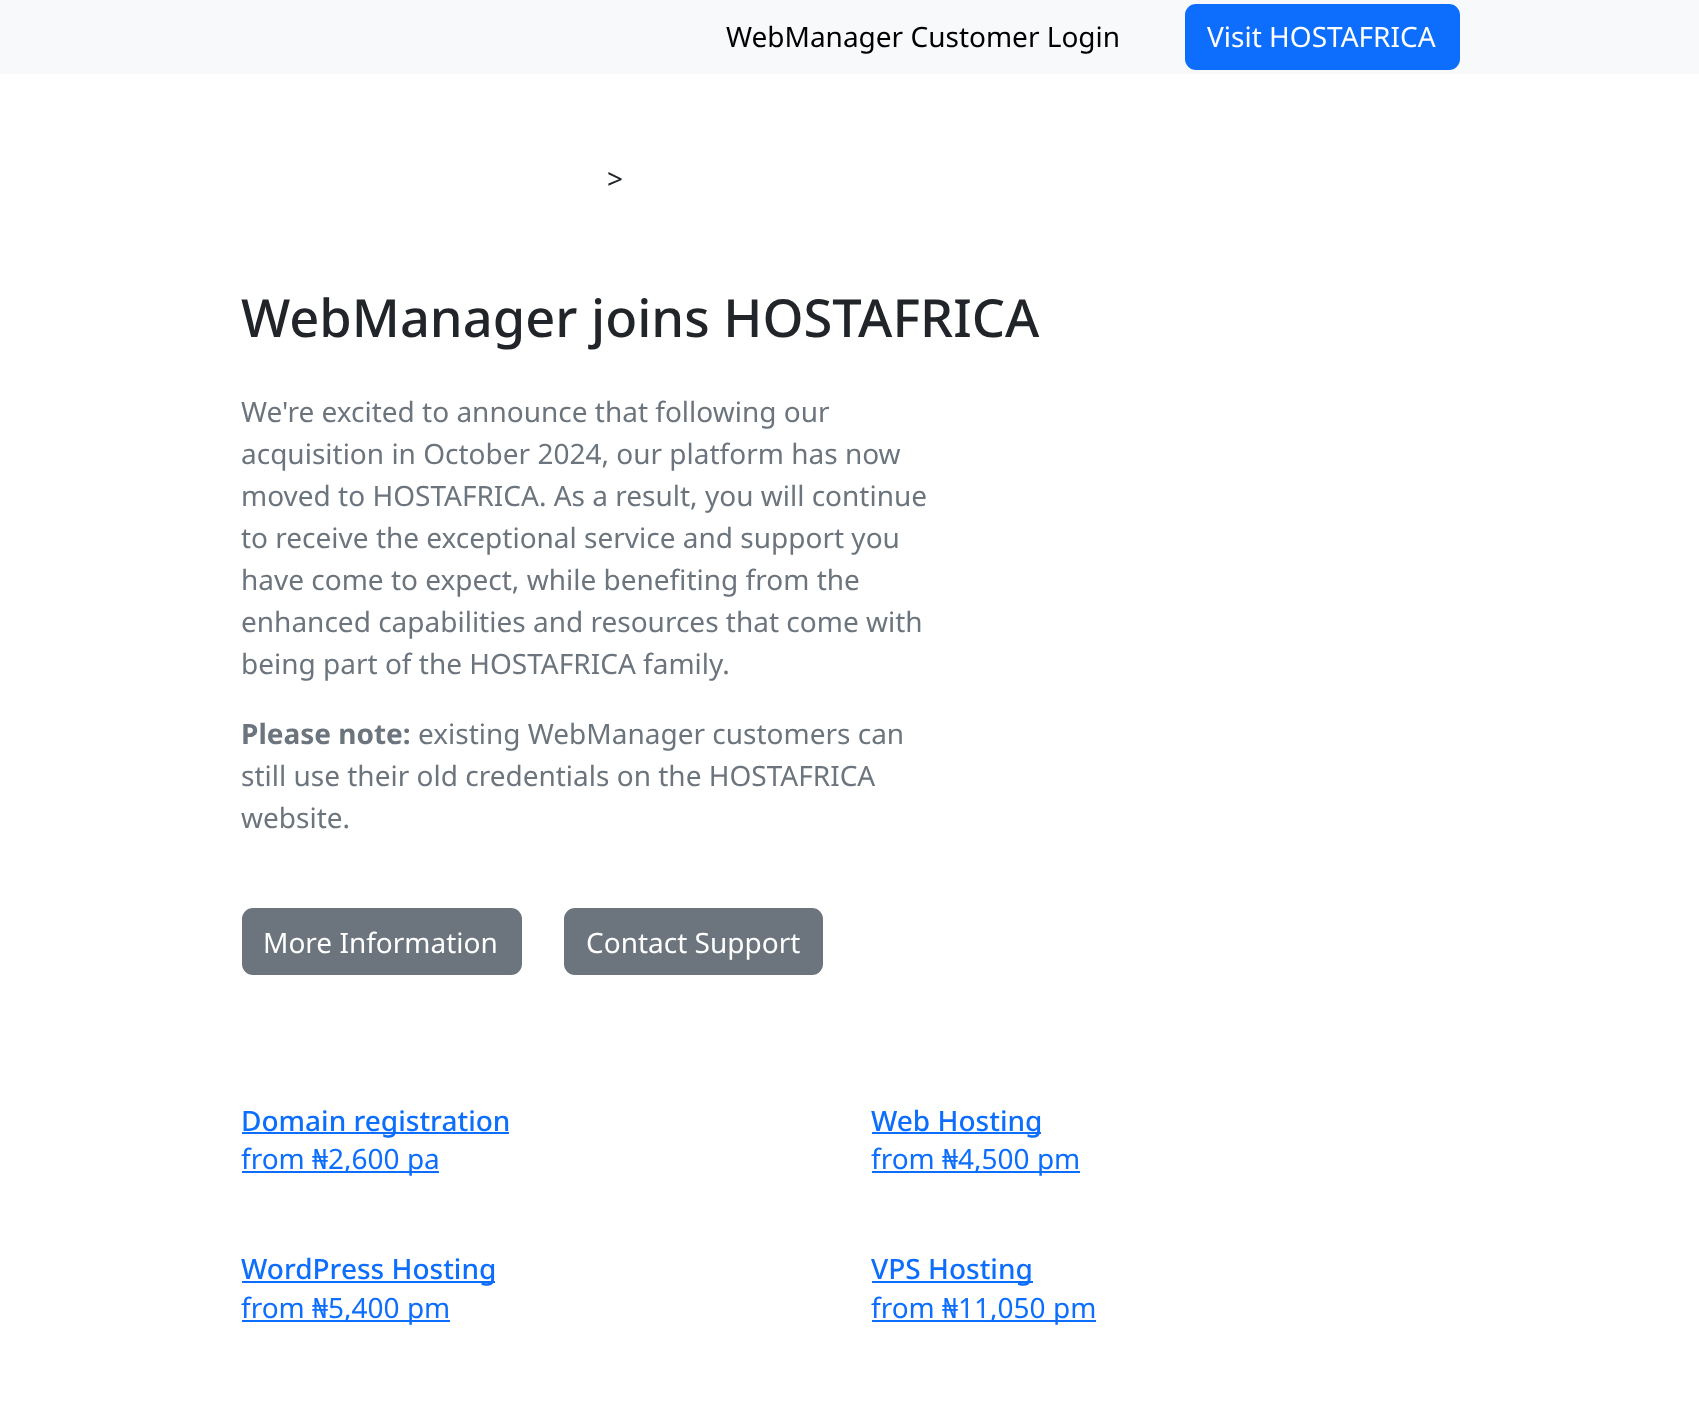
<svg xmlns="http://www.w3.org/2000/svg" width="1699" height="1401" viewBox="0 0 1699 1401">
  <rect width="100%" height="100%" fill="#ffffff"/>
  <rect x="0" y="0" width="1699" height="74" fill="#f8f9fa"/>
  <text x="726" y="47" font-family="Noto Sans" font-size="28" fill="#000000">WebManager Customer Login</text>
  <rect x="1186" y="5" width="273" height="64" rx="10" fill="#0d6efd" stroke="#0d6efd" stroke-width="2"/>
  <text x="1207" y="47" font-family="Noto Sans" font-size="28" fill="#ffffff">Visit HOSTAFRICA</text>
  <text x="607" y="189" font-family="Noto Sans" font-size="28" fill="#212529">&gt;</text>
  <text x="241" y="337" font-family="Noto Sans" font-size="52.4" font-weight="500" fill="#212529">WebManager joins HOSTAFRICA</text>
  <text x="241" y="422" font-family="Noto Sans" font-size="28" fill="#6c757d">We're excited to announce that following our</text>
  <text x="241" y="464" font-family="Noto Sans" font-size="28" fill="#6c757d">acquisition in October 2024, our platform has now</text>
  <text x="241" y="506" font-family="Noto Sans" font-size="28" fill="#6c757d">moved to HOSTAFRICA. As a result, you will continue</text>
  <text x="241" y="548" font-family="Noto Sans" font-size="28" fill="#6c757d">to receive the exceptional service and support you</text>
  <text x="241" y="590" font-family="Noto Sans" font-size="28" fill="#6c757d">have come to expect, while benefiting from the</text>
  <text x="241" y="632" font-family="Noto Sans" font-size="28" fill="#6c757d">enhanced capabilities and resources that come with</text>
  <text x="241" y="674" font-family="Noto Sans" font-size="28" fill="#6c757d">being part of the HOSTAFRICA family.</text>
  <text x="241" y="744" font-family="Noto Sans" font-size="28" font-weight="bold" fill="#6c757d">Please note:</text>
  <text x="418" y="744" font-family="Noto Sans" font-size="28" fill="#6c757d">existing WebManager customers can</text>
  <text x="241" y="786" font-family="Noto Sans" font-size="28" fill="#6c757d">still use their old credentials on the HOSTAFRICA</text>
  <text x="241" y="828" font-family="Noto Sans" font-size="28" fill="#6c757d">website.</text>
  <rect x="243" y="909" width="278" height="65" rx="10" fill="#6c757d" stroke="#6c757d" stroke-width="2"/>
  <text x="263" y="953" font-family="Noto Sans" font-size="28" fill="#ffffff">More Information</text>
  <rect x="565" y="909" width="257" height="65" rx="10" fill="#6c757d" stroke="#6c757d" stroke-width="2"/>
  <text x="586" y="953" font-family="Noto Sans" font-size="28" fill="#ffffff">Contact Support</text>
  <rect x="242" y="1132" width="267" height="2" fill="#0d6efd"/>
  <text x="241" y="1131" font-family="Noto Sans" font-size="28" font-weight="500" fill="#0d6efd">Domain registration</text>
  <rect x="242" y="1171" width="197" height="2" fill="#0d6efd"/>
  <text x="241" y="1169" font-family="Noto Sans" font-size="28" fill="#0d6efd">from ₦2,600 pa</text>
  <rect x="872" y="1132" width="169" height="2" fill="#0d6efd"/>
  <text x="871" y="1131" font-family="Noto Sans" font-size="28" font-weight="500" fill="#0d6efd">Web Hosting</text>
  <rect x="872" y="1171" width="208" height="2" fill="#0d6efd"/>
  <text x="871" y="1169" font-family="Noto Sans" font-size="28" fill="#0d6efd">from ₦4,500 pm</text>
  <rect x="242" y="1281" width="253" height="2" fill="#0d6efd"/>
  <text x="241" y="1279" font-family="Noto Sans" font-size="28" font-weight="500" fill="#0d6efd">WordPress Hosting</text>
  <rect x="242" y="1320" width="208" height="2" fill="#0d6efd"/>
  <text x="241" y="1318" font-family="Noto Sans" font-size="28" fill="#0d6efd">from ₦5,400 pm</text>
  <rect x="872" y="1281" width="161" height="2" fill="#0d6efd"/>
  <text x="871" y="1279" font-family="Noto Sans" font-size="28" font-weight="500" fill="#0d6efd">VPS Hosting</text>
  <rect x="872" y="1320" width="224" height="2" fill="#0d6efd"/>
  <text x="871" y="1318" font-family="Noto Sans" font-size="28" fill="#0d6efd">from ₦11,050 pm</text>
</svg>
